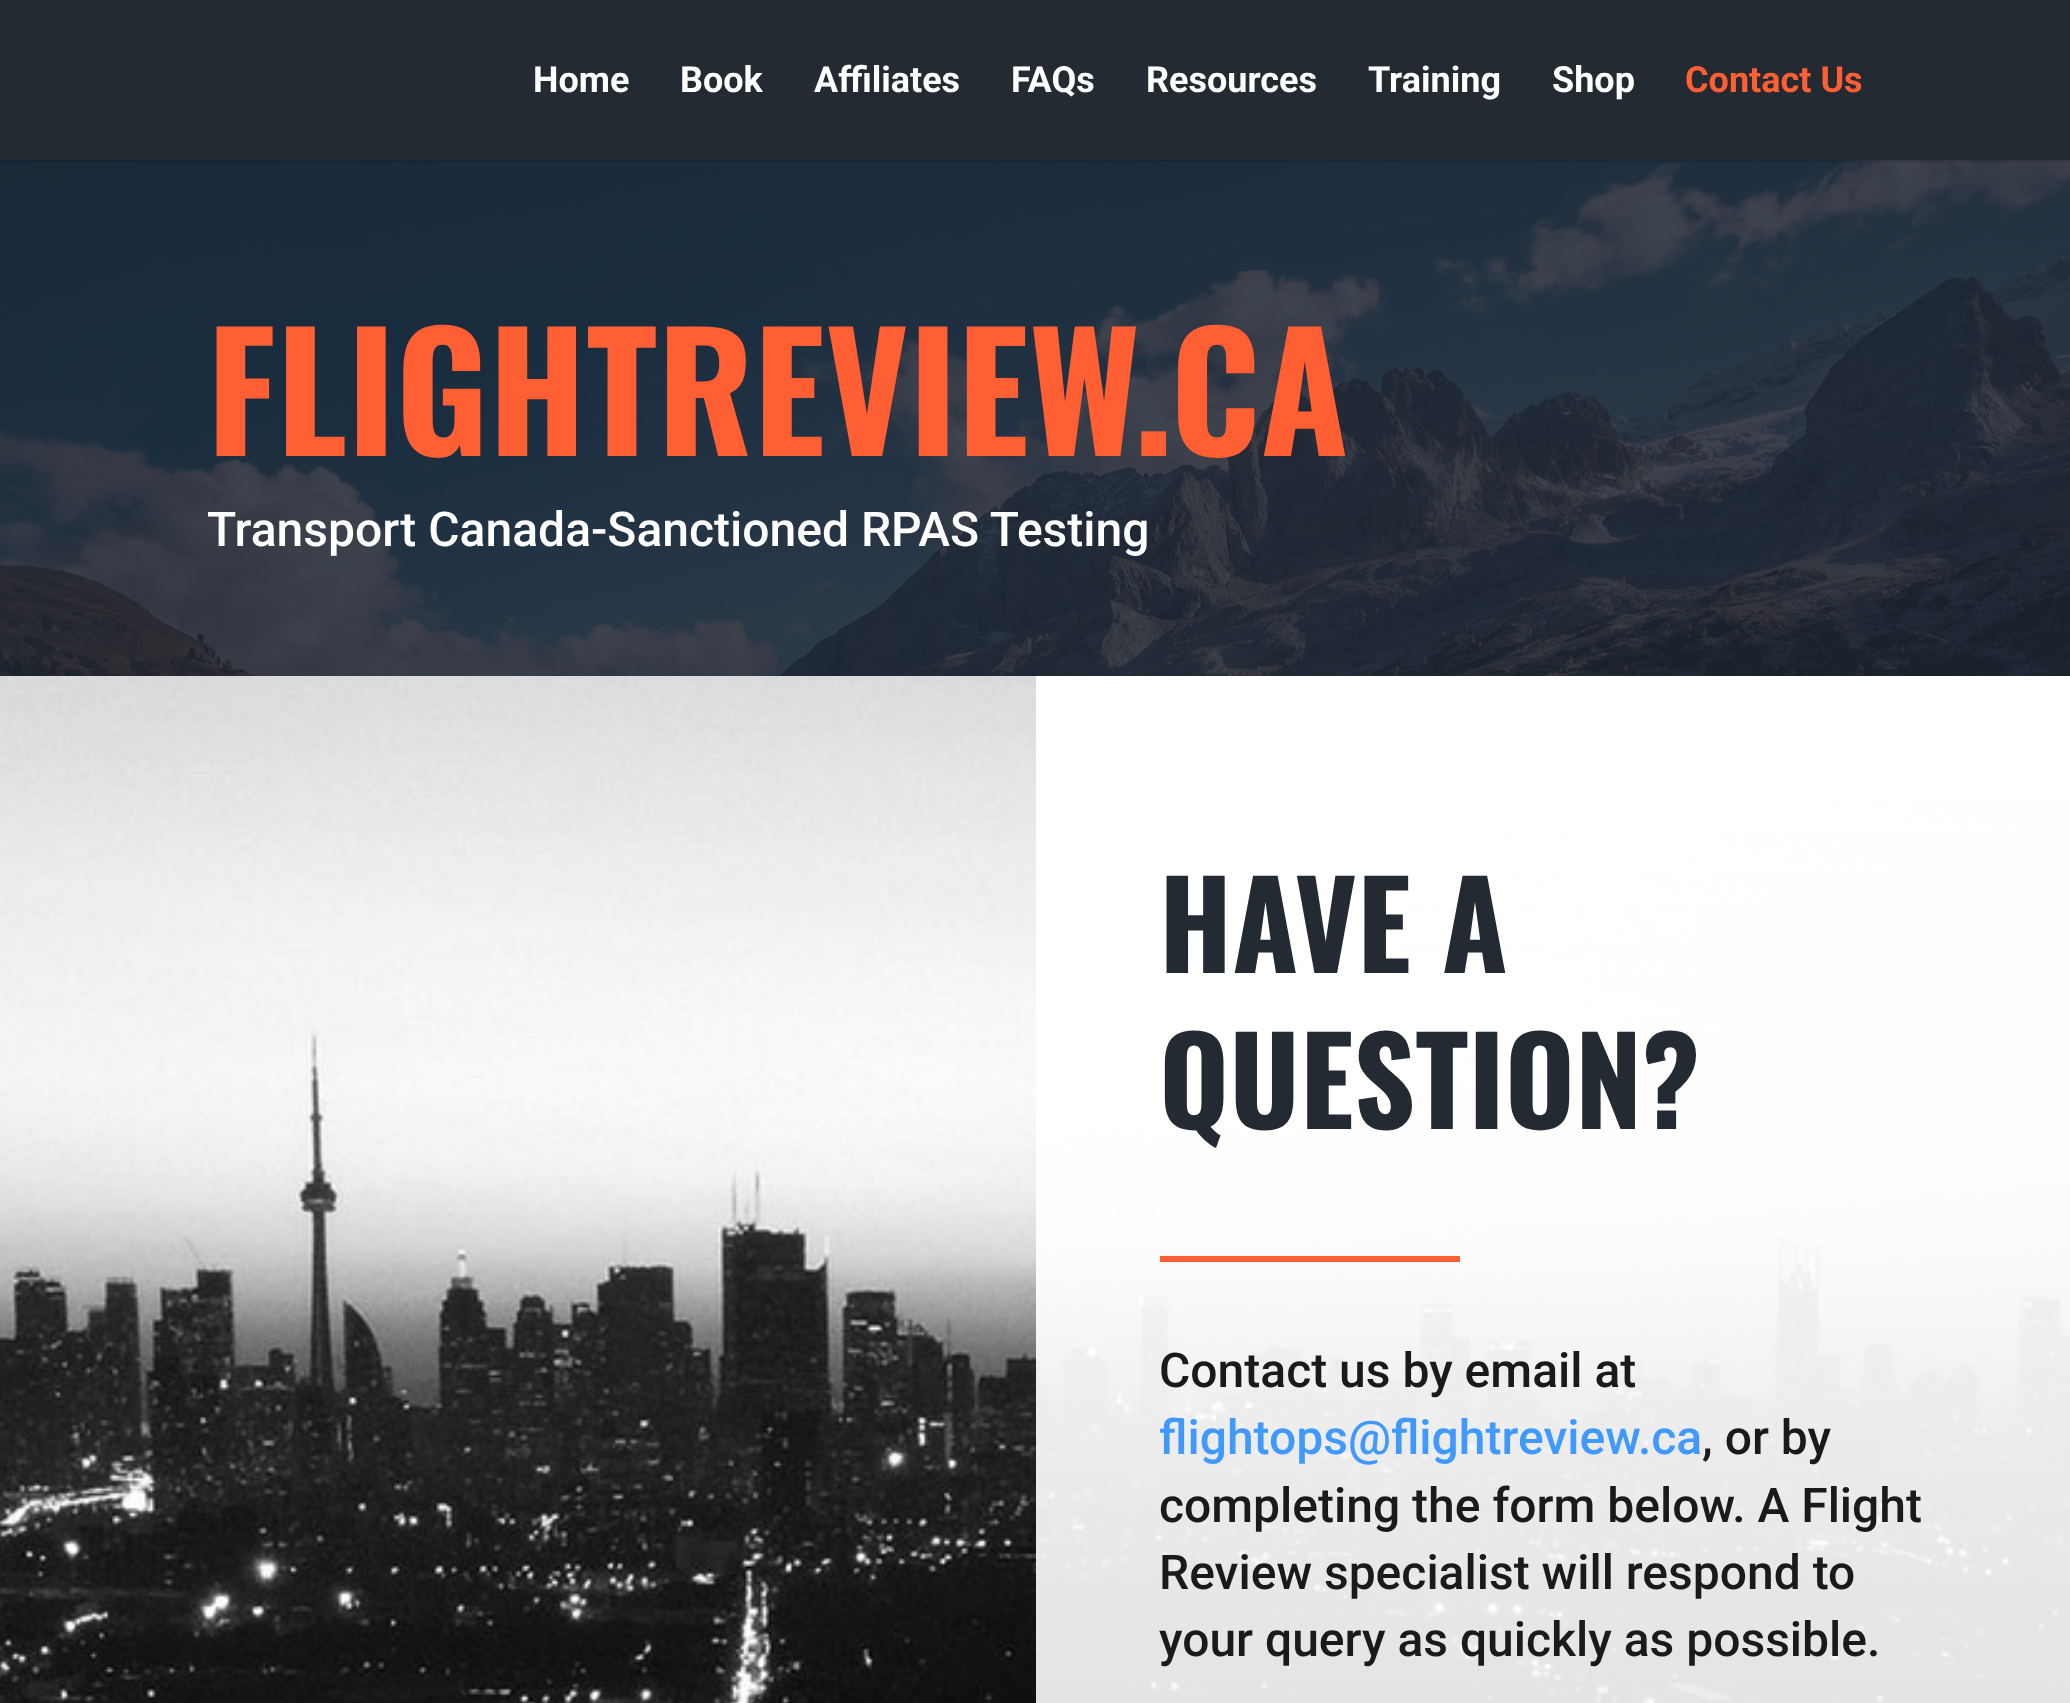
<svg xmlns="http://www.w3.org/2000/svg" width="2070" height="1703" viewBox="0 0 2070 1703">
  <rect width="100%" height="100%" fill="#ffffff"/>
  <image x="0" y="160" width="2070" height="516" href="img1.png"/>
  <rect x="0" y="160" width="2070" height="2" fill="#000000" fill-opacity="0.1"/>
  <rect x="0" y="0" width="2070" height="160" fill="#242a31"/>
  <text x="533" y="92" font-family="Roboto" font-size="36" font-weight="bold" fill="#ffffff">Home</text>
  <text x="680" y="92" font-family="Roboto" font-size="36" font-weight="bold" fill="#ffffff">Book</text>
  <text x="814" y="92" font-family="Roboto" font-size="36" font-weight="bold" fill="#ffffff">Affiliates</text>
  <text x="1011" y="92" font-family="Roboto" font-size="36" font-weight="bold" fill="#ffffff">FAQs</text>
  <text x="1146" y="92" font-family="Roboto" font-size="36" font-weight="bold" fill="#ffffff">Resources</text>
  <text x="1368" y="92" font-family="Roboto" font-size="36" font-weight="bold" fill="#ffffff">Training</text>
  <text x="1552" y="92" font-family="Roboto" font-size="36" font-weight="bold" fill="#ffffff">Shop</text>
  <text x="1685" y="92" font-family="Roboto" font-size="36" font-weight="bold" fill="#ff5f33">Contact Us</text>
  <text x="207" y="456" font-family="Oswald" font-size="160" font-weight="bold" fill="#ff5f33">FLIGHTREVIEW.CA</text>
  <text x="207" y="546" font-family="Roboto" font-size="48" font-weight="500" fill="#ffffff">Transport Canada-Sanctioned RPAS Testing</text>
  <image x="0" y="676" width="2070" height="1027" href="img2.png"/>
  <text x="1159" y="973" font-family="Oswald" font-size="120" font-weight="bold" fill="#242a31">HAVE A</text>
  <text x="1159" y="1129" font-family="Oswald" font-size="120" font-weight="bold" fill="#242a31">QUESTION?</text>
  <rect x="1160" y="1256" width="300" height="6" fill="#ff5f33"/>
  <text x="1159" y="1387" font-family="Roboto" font-size="48" font-weight="500" fill="#1a1a1a">Contact us by email at</text>
  <text x="1159" y="1454" font-family="Roboto" font-size="48" font-weight="500" fill="#4099ff">flightops@flightreview.ca</text>
  <text x="1702" y="1454" font-family="Roboto" font-size="48" font-weight="500" fill="#1a1a1a">, or by</text>
  <text x="1159" y="1522" font-family="Roboto" font-size="48" font-weight="500" fill="#1a1a1a">completing the form below. A Flight</text>
  <text x="1159" y="1589" font-family="Roboto" font-size="48" font-weight="500" fill="#1a1a1a">Review specialist will respond to</text>
  <text x="1159" y="1656" font-family="Roboto" font-size="48" font-weight="500" fill="#1a1a1a">your query as quickly as possible.</text>
</svg>
